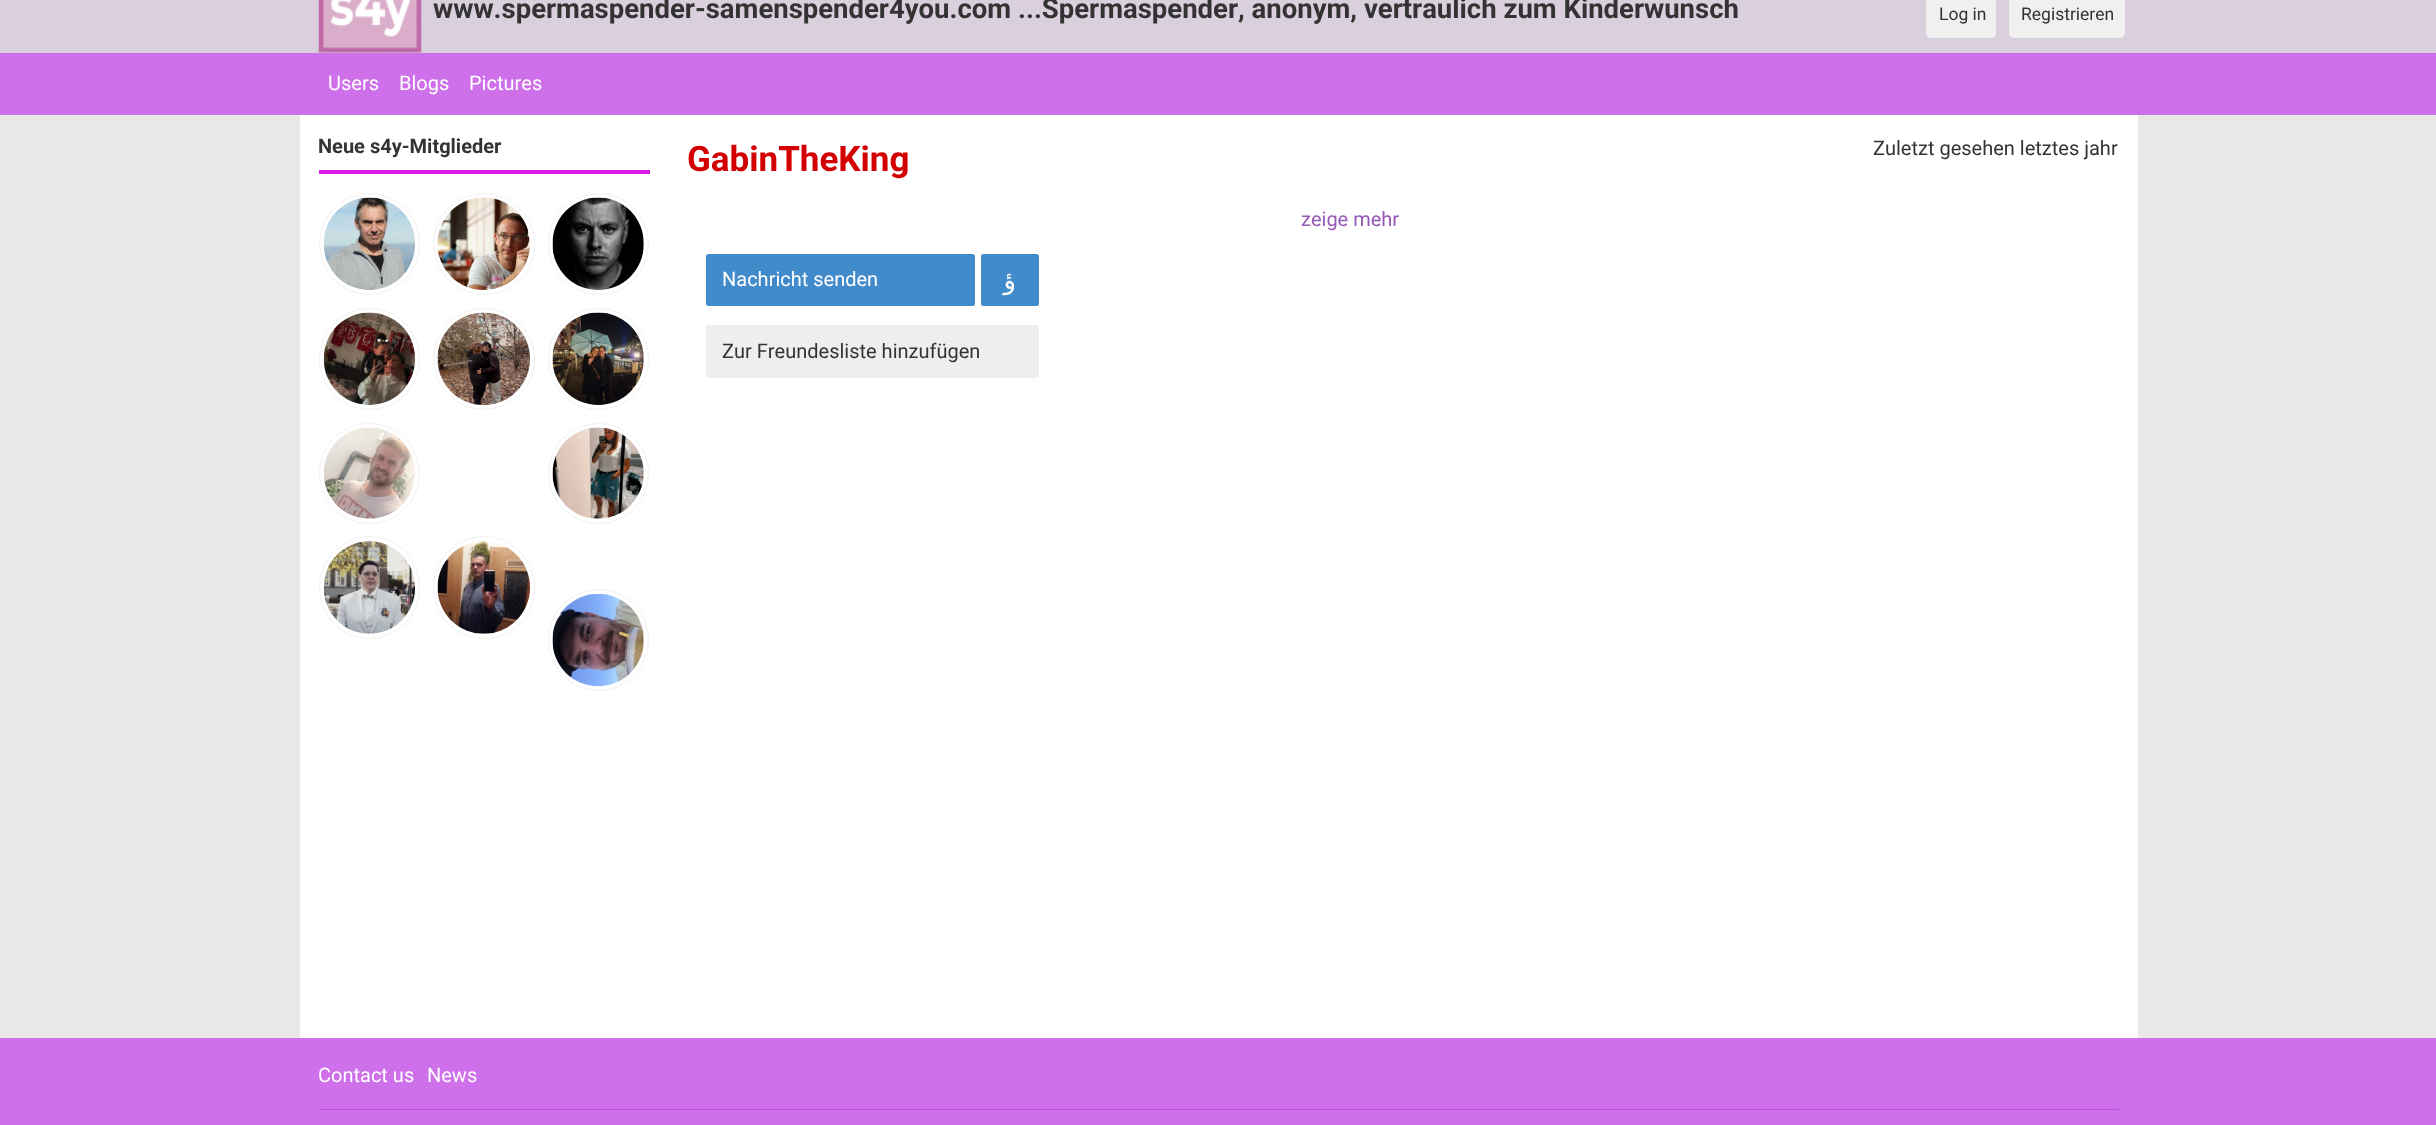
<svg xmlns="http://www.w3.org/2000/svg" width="2436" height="1125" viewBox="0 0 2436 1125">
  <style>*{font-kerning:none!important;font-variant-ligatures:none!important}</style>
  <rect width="100%" height="100%" fill="#e8e8e8"/>
  <rect x="0" y="0" width="2436" height="53" fill="#dacfdd"/>
  <image x="318" y="0" width="104" height="53" href="img1.png"/>
  <text x="433" y="18" font-family="Roboto" font-size="27.5" font-weight="bold" fill="#333333">www.spermaspender-samenspender4you.com ...Spermaspender, anonym, vertraulich zum Kinderwunsch</text>
  <rect x="0" y="53" width="2436" height="62" fill="#cd70ea"/>
  <rect x="1926" y="-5" width="70" height="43" rx="5" fill="#f0f0f0"/>
  <text x="1939" y="20" font-family="Roboto" font-size="17.5" fill="#333333">Log in</text>
  <rect x="2009" y="-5" width="116" height="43" rx="5" fill="#f0f0f0"/>
  <text x="2021" y="20" font-family="Roboto" font-size="17.5" fill="#333333">Registrieren</text>
  <text x="328" y="90" font-family="Roboto" font-size="20" fill="#ffffff">Users</text>
  <text x="399" y="90" font-family="Roboto" font-size="20" fill="#ffffff">Blogs</text>
  <text x="469" y="90" font-family="Roboto" font-size="20" fill="#ffffff">Pictures</text>
  <rect x="300" y="115" width="1838" height="923" fill="#ffffff"/>
  <rect x="319" y="170" width="331" height="4" fill="#db1ae5"/>
  <text x="318" y="153" font-family="Roboto" font-size="20" font-weight="bold" fill="#333333">Neue s4y-Mitglieder</text>
  <rect x="319.5" y="193.5" width="100" height="101" rx="50" fill="none" stroke="#f1f1f1"/>
  <image x="324" y="197" width="91" height="93" href="img2.png"/>
  <circle cx="484" cy="244" r="50.5" fill="none" stroke="#f1f1f1"/>
  <image x="437" y="197" width="93" height="93" href="img3.png"/>
  <rect x="548.5" y="193.5" width="100" height="101" rx="50" fill="none" stroke="#f1f1f1"/>
  <image x="552" y="197" width="92" height="93" href="img4.png"/>
  <rect x="319.5" y="308.5" width="100" height="101" rx="50" fill="none" stroke="#f1f1f1"/>
  <image x="323" y="312" width="92" height="93" href="img5.png"/>
  <circle cx="484" cy="359" r="50.5" fill="none" stroke="#f1f1f1"/>
  <image x="437" y="312" width="93" height="93" href="img6.png"/>
  <rect x="548.5" y="308.5" width="100" height="101" rx="50" fill="none" stroke="#f1f1f1"/>
  <image x="552" y="312" width="92" height="93" href="img7.png"/>
  <circle cx="369.5" cy="473.5" r="50" fill="none" stroke="#f1f1f1"/>
  <image x="324" y="427" width="91" height="92" href="img8.png"/>
  <circle cx="598.5" cy="473.5" r="50" fill="none" stroke="#f1f1f1"/>
  <image x="552" y="427" width="92" height="92" href="img9.png"/>
  <rect x="319.5" y="536.5" width="100" height="102" rx="50" fill="none" stroke="#f1f1f1"/>
  <image x="323" y="541" width="92" height="93" href="img10.png"/>
  <rect x="433.5" y="536.5" width="101" height="102" rx="50.5" fill="none" stroke="#f1f1f1"/>
  <image x="437" y="541" width="93" height="93" href="img11.png"/>
  <rect x="548.5" y="589.5" width="100" height="101" rx="50" fill="none" stroke="#f1f1f1"/>
  <image x="552" y="593" width="92" height="94" href="img12.png"/>
  <text x="687" y="171" font-family="Roboto" font-size="35" font-weight="bold" fill="#d20000">GabinTheKing</text>
  <text x="1873" y="155" font-family="Roboto" font-size="20" fill="#333333">Zuletzt gesehen letztes jahr</text>
  <text x="1301" y="226" font-family="Roboto" font-size="20" fill="#9559b6">zeige mehr</text>
  <rect x="706" y="254" width="269" height="52" rx="2.5" fill="#428bca"/>
  <text x="722" y="286" font-family="Roboto" font-size="20" fill="#ffffff">Nachricht senden</text>
  <rect x="981" y="254" width="58" height="52" rx="2.5" fill="#428bca"/>
  <text x="1016" y="289" font-family="DejaVu Sans" font-size="26" direction="rtl" fill="#ffffff">ﺅ</text>
  <rect x="706" y="325" width="333" height="53" rx="2.5" fill="#eeeeee"/>
  <text x="722" y="358" font-family="Roboto" font-size="20" fill="#333333">Zur Freundesliste hinzufügen</text>
  <rect x="0" y="1038" width="2436" height="87" fill="#cd70ea"/>
  <text x="318" y="1082" font-family="Roboto" font-size="20" fill="#ffffff">Contact us</text>
  <text x="427" y="1082" font-family="Roboto" font-size="20" fill="#ffffff">News</text>
  <rect x="319" y="1109" width="1800" height="1" fill="#c14ce5"/>
</svg>
